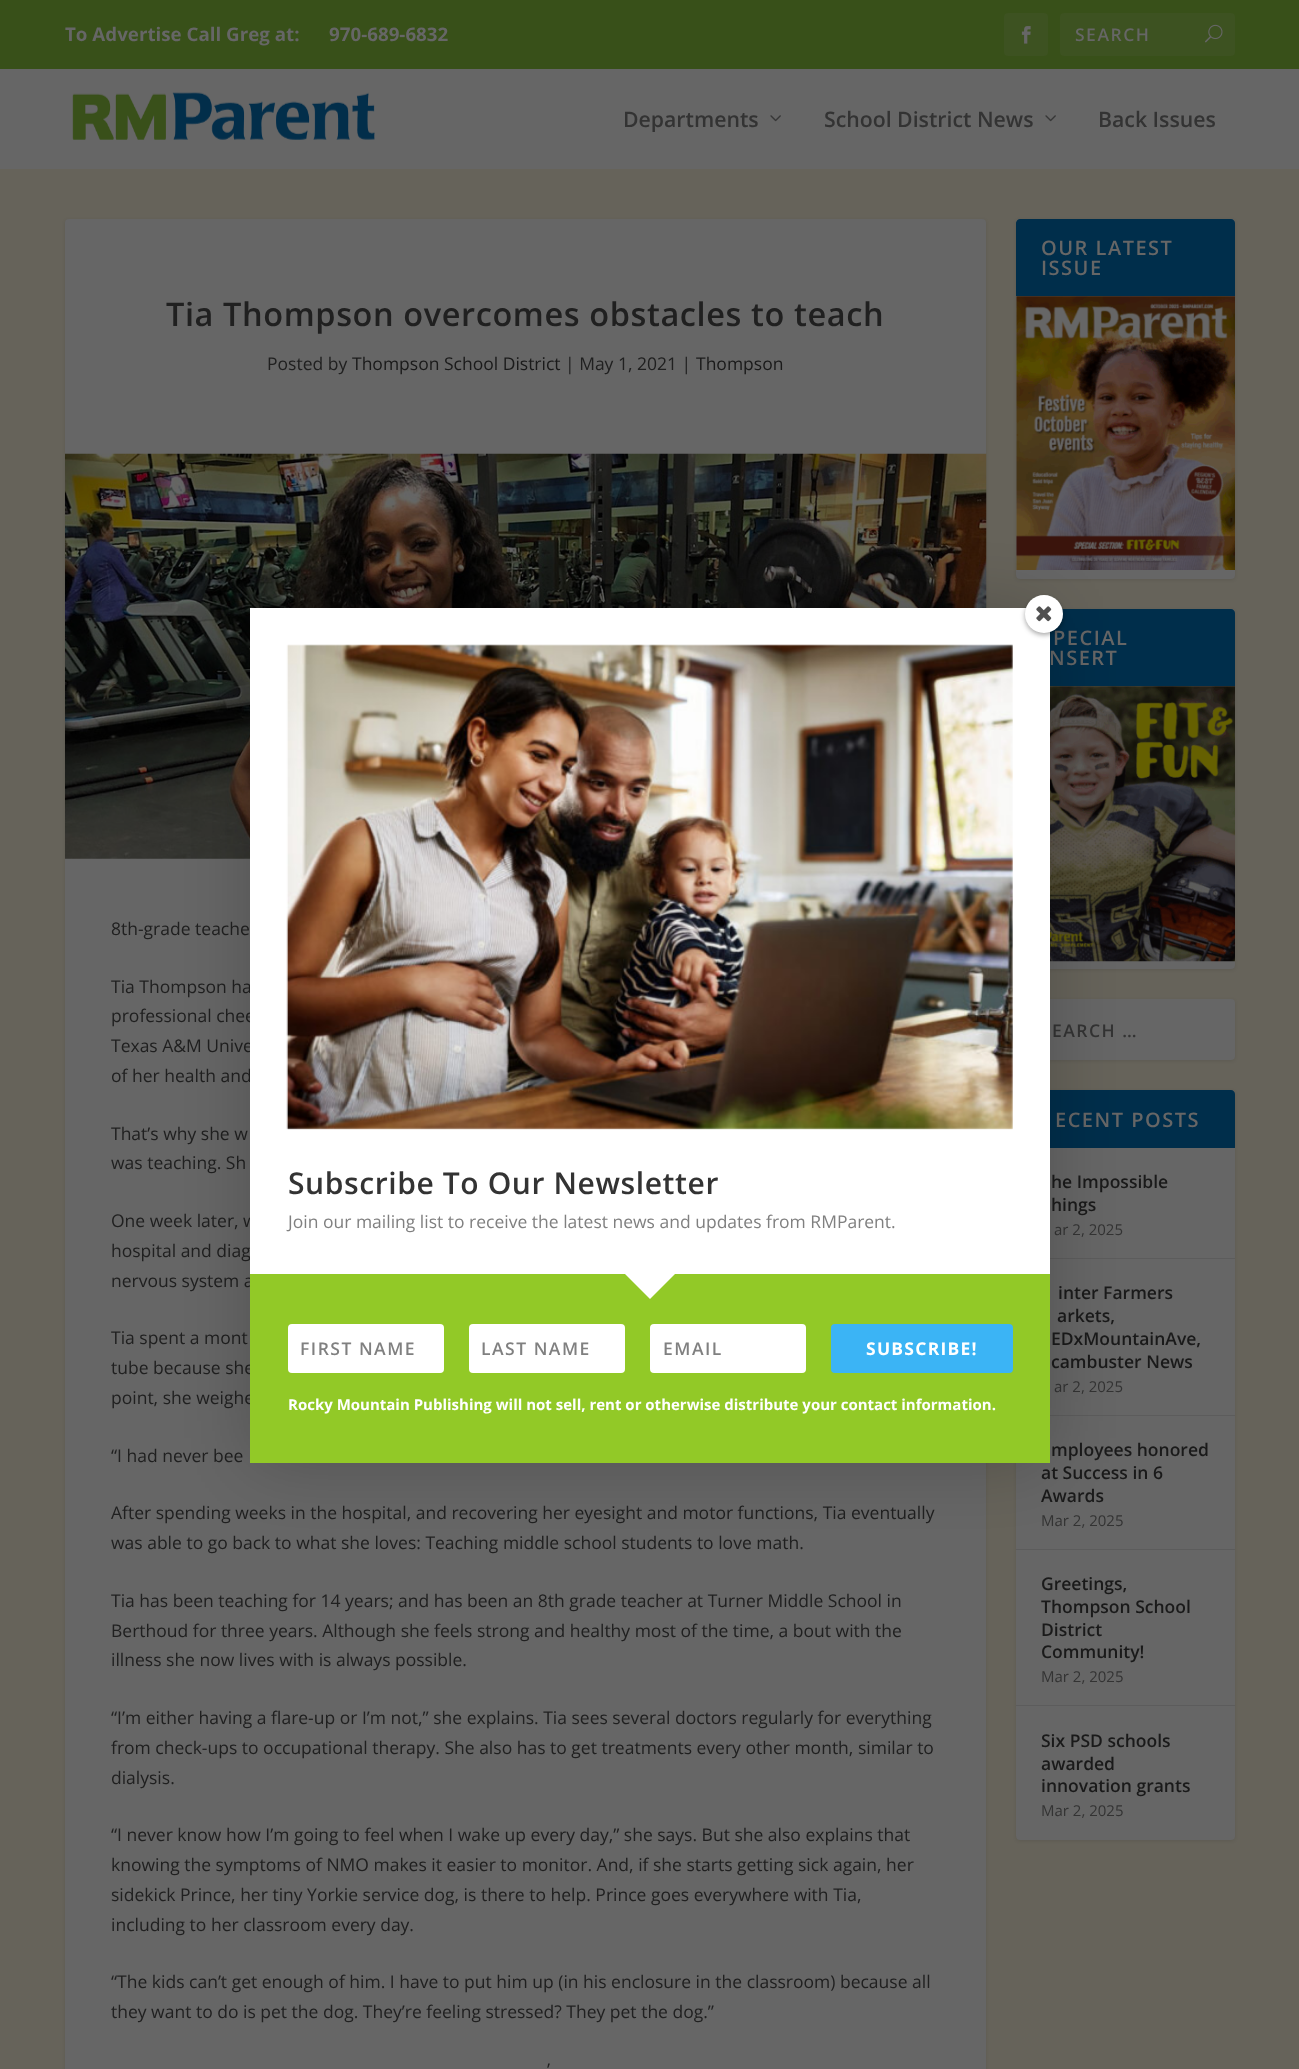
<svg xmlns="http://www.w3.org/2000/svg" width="1299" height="2069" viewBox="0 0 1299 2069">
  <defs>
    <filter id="blur1" x="-50%" y="-200%" width="200%" height="500%"><feGaussianBlur stdDeviation="2"/></filter>
    <filter id="blur2" x="-50%" y="-200%" width="200%" height="500%"><feGaussianBlur stdDeviation="37.5"/></filter>
    <filter id="blur3" x="-50%" y="-200%" width="200%" height="500%"><feGaussianBlur stdDeviation="2.5"/></filter>
  </defs>
  <rect width="100%" height="100%" fill="#66635a"/>
  <rect x="0" y="0" width="1299" height="69" fill="#385019"/>
  <text x="65" y="41" font-family="Open Sans" font-size="18.75" font-weight="bold" fill="#666666">To Advertise Call Greg at:</text>
  <text x="329" y="41" font-family="Open Sans" font-size="18.75" font-weight="bold" fill="#666666">970-689-6832</text>
  <rect x="1004" y="13" width="44" height="43" rx="4" fill="#3d5221"/>
  <image x="1021" y="26" width="10" height="18" href="img1.png"/>
  <rect x="1060" y="13" width="175" height="43" rx="4" fill="#3d5221"/>
  <text x="1075" y="41" font-family="Open Sans" font-size="17.5" font-weight="600" letter-spacing="1.5" fill="#666666">SEARCH</text>
  <image x="1205" y="24" width="18" height="19" href="img2.png"/>
  <rect x="0" y="69" width="1299" height="100" fill="#666666"/>
  <image x="72" y="92" width="303" height="48" href="img3.png"/>
  <text x="623" y="127" font-family="Open Sans" font-size="21.25" font-weight="600" fill="#333333">Departments</text>
  <image x="770" y="115" width="11" height="7" href="img4.png"/>
  <text x="824" y="127" font-family="Open Sans" font-size="21.25" font-weight="600" fill="#333333">School District News</text>
  <image x="1045" y="115" width="11" height="7" href="img4.png"/>
  <text x="1098" y="127" font-family="Open Sans" font-size="21.25" font-weight="600" fill="#333333">Back Issues</text>
  <rect x="65" y="220" width="921" height="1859" rx="4" fill="#000000" fill-opacity="0.1" filter="url(#blur1)"/>
  <rect x="65" y="219" width="921" height="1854" rx="4" fill="#666666"/>
  <text x="166" y="326" font-family="Open Sans" font-size="32.5" font-weight="600" letter-spacing="0.6" fill="#202020">Tia Thompson overcomes obstacles to teach</text>
  <text x="267" y="370" font-family="Open Sans" font-size="17.5" fill="#202020">Posted by</text>
  <text x="352" y="370" font-family="Open Sans" font-size="17.5" fill="#1a1a1a">Thompson School District</text>
  <text x="565" y="370" font-family="Open Sans" font-size="17.5" fill="#202020">| May 1, 2021 |</text>
  <text x="696" y="370" font-family="Open Sans" font-size="17.5" fill="#1a1a1a">Thompson</text>
  <image x="65" y="453" width="922" height="406" href="img5.png"/>
  <text x="111" y="935" font-family="Open Sans" font-size="17.5" fill="#202020">8th-grade teache</text>
  <text x="111" y="993" font-family="Open Sans" font-size="17.5" fill="#202020">Tia Thompson ha</text>
  <text x="111" y="1022" font-family="Open Sans" font-size="17.5" fill="#202020">professional chee</text>
  <text x="111" y="1052" font-family="Open Sans" font-size="17.5" fill="#202020">Texas A&amp;M Unive</text>
  <text x="111" y="1082" font-family="Open Sans" font-size="17.5" fill="#202020">of her health and</text>
  <text x="111" y="1140" font-family="Open Sans" font-size="17.5" fill="#202020">That’s why she w</text>
  <text x="111" y="1169" font-family="Open Sans" font-size="17.5" fill="#202020">was teaching. Sh</text>
  <text x="111" y="1227" font-family="Open Sans" font-size="17.5" fill="#202020">One week later, w</text>
  <text x="111" y="1257" font-family="Open Sans" font-size="17.5" fill="#202020">hospital and diag</text>
  <text x="111" y="1287" font-family="Open Sans" font-size="17.5" fill="#202020">nervous system a</text>
  <text x="111" y="1344" font-family="Open Sans" font-size="17.5" fill="#202020">Tia spent a mont</text>
  <text x="111" y="1374" font-family="Open Sans" font-size="17.5" fill="#202020">tube because she</text>
  <text x="111" y="1404" font-family="Open Sans" font-size="17.5" fill="#202020">point, she weighe</text>
  <text x="111" y="1462" font-family="Open Sans" font-size="17.5" fill="#202020">“I had never bee</text>
  <text x="111" y="1519" font-family="Open Sans" font-size="17.5" fill="#202020">After spending weeks in the hospital, and recovering her eyesight and motor functions, Tia eventually</text>
  <text x="111" y="1549" font-family="Open Sans" font-size="17.5" fill="#202020">was able to go back to what she loves: Teaching middle school students to love math.</text>
  <text x="111" y="1607" font-family="Open Sans" font-size="17.5" fill="#202020">Tia has been teaching for 14 years; and has been an 8th grade teacher at Turner Middle School in</text>
  <text x="111" y="1637" font-family="Open Sans" font-size="17.5" fill="#202020">Berthoud for three years. Although she feels strong and healthy most of the time, a bout with the</text>
  <text x="111" y="1666" font-family="Open Sans" font-size="17.5" fill="#202020">illness she now lives with is always possible.</text>
  <text x="111" y="1724" font-family="Open Sans" font-size="17.5" fill="#202020">“I’m either having a flare-up or I’m not,” she explains. Tia sees several doctors regularly for everything</text>
  <text x="111" y="1754" font-family="Open Sans" font-size="17.5" fill="#202020">from check-ups to occupational therapy. She also has to get treatments every other month, similar to</text>
  <text x="111" y="1784" font-family="Open Sans" font-size="17.5" fill="#202020">dialysis.</text>
  <text x="111" y="1841" font-family="Open Sans" font-size="17.5" fill="#202020">“I never know how I’m going to feel when I wake up every day,” she says. But she also explains that</text>
  <text x="111" y="1871" font-family="Open Sans" font-size="17.5" fill="#202020">knowing the symptoms of NMO makes it easier to monitor. And, if she starts getting sick again, her</text>
  <text x="111" y="1901" font-family="Open Sans" font-size="17.5" fill="#202020">sidekick Prince, her tiny Yorkie service dog, is there to help. Prince goes everywhere with Tia,</text>
  <text x="111" y="1931" font-family="Open Sans" font-size="17.5" fill="#202020">including to her classroom every day.</text>
  <text x="111" y="1988" font-family="Open Sans" font-size="17.5" fill="#202020">“The kids can’t get enough of him. I have to put him up (in his enclosure in the classroom) because all</text>
  <text x="111" y="2018" font-family="Open Sans" font-size="17.5" fill="#202020">they want to do is pet the dog. They’re feeling stressed? They pet the dog.”</text>
  <text x="547" y="2076" font-family="Open Sans" font-size="17.5" fill="#202020">’</text>
  <rect x="1016" y="220" width="219" height="360" rx="4" fill="#000000" fill-opacity="0.1" filter="url(#blur1)"/>
  <rect x="1016" y="219" width="219" height="360" rx="4" fill="#666666"/>
  <path d="M1020 219H1231C1233 219 1235 221 1235 223V296H1016V223C1016 221 1018 219 1020 219Z" fill="#002e4b"/>
  <text x="1041" y="255" font-family="Open Sans" font-size="20" font-weight="600" letter-spacing="1.5" fill="#666666">OUR LATEST</text>
  <text x="1041" y="275" font-family="Open Sans" font-size="20" font-weight="600" letter-spacing="1.5" fill="#666666">ISSUE</text>
  <image x="1016" y="296" width="219" height="274" href="img6.png"/>
  <rect x="1016" y="610" width="219" height="360" rx="4" fill="#000000" fill-opacity="0.1" filter="url(#blur1)"/>
  <rect x="1016" y="609" width="219" height="360" rx="4" fill="#666666"/>
  <path d="M1020 609H1231C1233 609 1235 611 1235 613V686H1016V613C1016 611 1018 609 1020 609Z" fill="#002e4b"/>
  <text x="1053" y="645" font-family="Open Sans" font-size="20" font-weight="600" letter-spacing="1.5" fill="#666666">PECIAL</text>
  <text x="1049" y="665" font-family="Open Sans" font-size="20" font-weight="600" letter-spacing="1.5" fill="#666666">NSERT</text>
  <image x="1050" y="686" width="185" height="276" href="img7.png"/>
  <rect x="1016" y="1000" width="219" height="61" rx="4" fill="#000000" fill-opacity="0.1" filter="url(#blur1)"/>
  <rect x="1016" y="999" width="219" height="61" rx="4" fill="#666666"/>
  <text x="1052" y="1037" font-family="Open Sans" font-size="17.5" font-weight="600" letter-spacing="1.5" fill="#333333">EARCH …</text>
  <rect x="1016" y="1091" width="219" height="750" rx="4" fill="#000000" fill-opacity="0.1" filter="url(#blur1)"/>
  <rect x="1016" y="1090" width="219" height="750" rx="4" fill="#666666"/>
  <path d="M1020 1090H1231C1233 1090 1235 1092 1235 1094V1148H1016V1094C1016 1092 1018 1090 1020 1090Z" fill="#002e4b"/>
  <text x="1055" y="1127" font-family="Open Sans" font-size="20" font-weight="600" letter-spacing="1.5" fill="#666666">ECENT POSTS</text>
  <rect x="1050" y="1258" width="185" height="1" fill="#5c5c5c"/>
  <text x="1051" y="1188" font-family="Open Sans" font-size="17.5" font-weight="600" fill="#1a1a1a">he Impossible</text>
  <text x="1051" y="1211" font-family="Open Sans" font-size="17.5" font-weight="600" fill="#1a1a1a">hings</text>
  <text x="1054" y="1235" font-family="Open Sans" font-size="15" fill="#333333">ar 2, 2025</text>
  <rect x="1050" y="1415" width="185" height="1" fill="#5c5c5c"/>
  <text x="1058" y="1299" font-family="Open Sans" font-size="17.5" font-weight="600" fill="#1a1a1a">inter Farmers</text>
  <text x="1057" y="1322" font-family="Open Sans" font-size="17.5" font-weight="600" fill="#1a1a1a">arkets,</text>
  <text x="1051" y="1345" font-family="Open Sans" font-size="17.5" font-weight="600" fill="#1a1a1a">EDxMountainAve,</text>
  <text x="1051" y="1368" font-family="Open Sans" font-size="17.5" font-weight="600" fill="#1a1a1a">cambuster News</text>
  <text x="1054" y="1392" font-family="Open Sans" font-size="15" fill="#333333">ar 2, 2025</text>
  <rect x="1016" y="1549" width="219" height="1" fill="#5c5c5c"/>
  <text x="1051" y="1456" font-family="Open Sans" font-size="17.5" font-weight="600" fill="#1a1a1a">mployees honored</text>
  <text x="1041" y="1479" font-family="Open Sans" font-size="17.5" font-weight="600" fill="#1a1a1a">at Success in 6</text>
  <text x="1041" y="1502" font-family="Open Sans" font-size="17.5" font-weight="600" fill="#1a1a1a">Awards</text>
  <text x="1041" y="1526" font-family="Open Sans" font-size="15" fill="#333333">Mar 2, 2025</text>
  <rect x="1016" y="1705" width="219" height="1" fill="#5c5c5c"/>
  <text x="1041" y="1590" font-family="Open Sans" font-size="17.5" font-weight="600" fill="#1a1a1a">Greetings,</text>
  <text x="1041" y="1613" font-family="Open Sans" font-size="17.5" font-weight="600" fill="#1a1a1a">Thompson School</text>
  <text x="1041" y="1636" font-family="Open Sans" font-size="17.5" font-weight="600" fill="#1a1a1a">District</text>
  <text x="1041" y="1658" font-family="Open Sans" font-size="17.5" font-weight="600" fill="#1a1a1a">Community!</text>
  <text x="1041" y="1682" font-family="Open Sans" font-size="15" fill="#333333">Mar 2, 2025</text>
  <text x="1041" y="1747" font-family="Open Sans" font-size="17.5" font-weight="600" fill="#1a1a1a">Six PSD schools</text>
  <text x="1041" y="1770" font-family="Open Sans" font-size="17.5" font-weight="600" fill="#1a1a1a">awarded</text>
  <text x="1041" y="1792" font-family="Open Sans" font-size="17.5" font-weight="600" fill="#1a1a1a">innovation grants</text>
  <text x="1041" y="1816" font-family="Open Sans" font-size="15" fill="#333333">Mar 2, 2025</text>
  <rect x="250" y="608" width="800" height="855" fill="#000000" fill-opacity="0.2" filter="url(#blur2)"/>
  <rect x="250" y="608" width="800" height="666" fill="#ffffff"/>
  <rect x="1025" y="598" width="38" height="37" rx="18.5" fill="#000000" fill-opacity="0.34" filter="url(#blur3)"/>
  <circle cx="1044" cy="614" r="19" fill="#ffffff"/>
  <image x="1036" y="606" width="16" height="16" href="img8.png"/>
  <image x="286" y="644" width="727" height="486" href="img9.png"/>
  <text x="288" y="1194" font-family="Open Sans" font-size="30" font-weight="600" letter-spacing="0.6" fill="#333333">Subscribe To Our Newsletter</text>
  <text x="288" y="1228" font-family="Open Sans" font-size="17.5" fill="#808080">Join our mailing list to receive the latest news and updates from RMParent.</text>
  <rect x="250" y="1274" width="800" height="189" fill="#92c927"/>
  <path d="M625 1274H675L650 1299Z" fill="#ffffff"/>
  <rect x="288" y="1324" width="156" height="49" rx="4" fill="#ffffff"/>
  <text x="300" y="1355" font-family="Open Sans" font-size="17.5" font-weight="600" letter-spacing="1.5" fill="#808080">FIRST NAME</text>
  <rect x="469" y="1324" width="156" height="49" rx="4" fill="#ffffff"/>
  <text x="481" y="1355" font-family="Open Sans" font-size="17.5" font-weight="600" letter-spacing="1.5" fill="#808080">LAST NAME</text>
  <rect x="650" y="1324" width="156" height="49" rx="4" fill="#ffffff"/>
  <text x="663" y="1355" font-family="Open Sans" font-size="17.5" font-weight="600" letter-spacing="1.5" fill="#808080">EMAIL</text>
  <rect x="831" y="1324" width="182" height="49" rx="4" fill="#3bb4f5"/>
  <text x="866" y="1355" font-family="Open Sans" font-size="17.5" font-weight="bold" letter-spacing="1.25" fill="#ffffff">SUBSCRIBE!</text>
  <text x="288" y="1410" font-family="Open Sans" font-size="15" font-weight="bold" fill="#ffffff">Rocky Mountain Publishing will not sell, rent or otherwise distribute your contact information.</text>
</svg>
